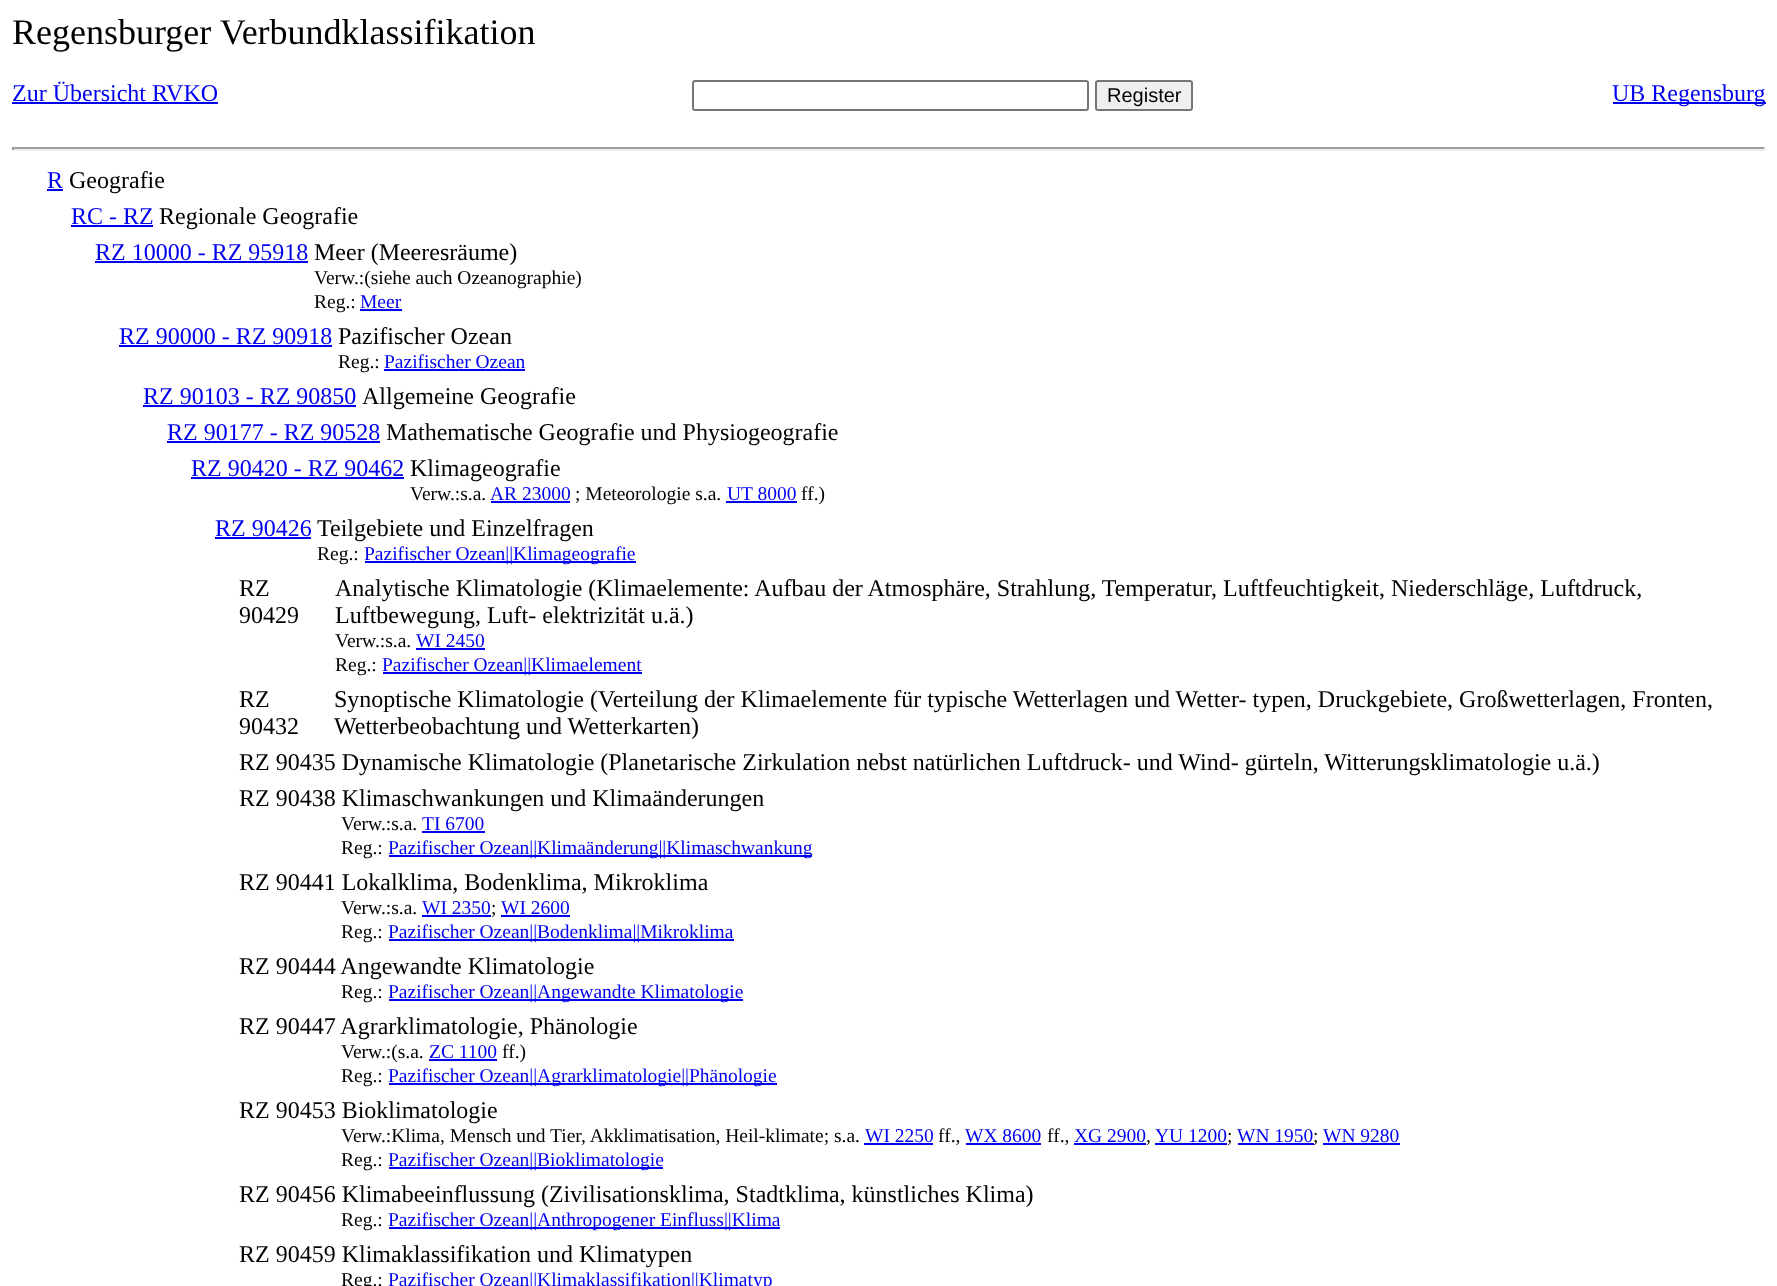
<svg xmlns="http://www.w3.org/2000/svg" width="1777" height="1286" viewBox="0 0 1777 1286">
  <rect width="100%" height="100%" fill="#ffffff"/>
  <text x="12" y="44" font-family="Liberation Serif" font-size="36" fill="#000000">Regensburger Verbundklassifikation</text>
  <text x="12" y="101" font-family="Liberation Serif" font-size="24" fill="#0000ee">Zur Übersicht RVKO</text>
  <rect x="12" y="102" width="206" height="2" fill="#0000ee"/>
  <rect x="693" y="81" width="395" height="29" rx="2" fill="none" stroke="#767676" stroke-width="2"/>
  <rect x="1096" y="81" width="96" height="29" rx="2" fill="#efefef" stroke="#767676" stroke-width="2"/>
  <text x="1107" y="102" font-family="Liberation Sans" font-size="20" fill="#000000">Register</text>
  <rect x="1613" y="102" width="153" height="2" fill="#0000ee"/>
  <text x="1612" y="101" font-family="Liberation Serif" font-size="24" fill="#0000ee">UB Regensburg</text>
  <rect x="12" y="147" width="1754" height="2" fill="#9f9f9f"/>
  <rect x="1764" y="147" width="2" height="3" fill="#eeeeee"/>
  <rect x="12" y="149" width="1754" height="2" fill="#eeeeee"/>
  <rect x="12" y="147" width="2" height="3" fill="#9f9f9f"/>
  <text x="47" y="188" font-family="Liberation Serif" font-size="24" fill="#0000ee">R</text>
  <rect x="47" y="189" width="16" height="2" fill="#0000ee"/>
  <text x="69" y="188" font-family="Liberation Serif" font-size="24" fill="#000000">Geografie</text>
  <text x="71" y="224" font-family="Liberation Serif" font-size="24" fill="#0000ee">RC - RZ</text>
  <rect x="71" y="225" width="82" height="2" fill="#0000ee"/>
  <text x="159" y="224" font-family="Liberation Serif" font-size="24" fill="#000000">Regionale Geografie</text>
  <text x="95" y="260" font-family="Liberation Serif" font-size="24" fill="#0000ee">RZ 10000 - RZ 95918</text>
  <rect x="95" y="261" width="213" height="2" fill="#0000ee"/>
  <text x="314" y="260" font-family="Liberation Serif" font-size="24" fill="#000000">Meer (Meeresräume)</text>
  <text x="314" y="284" font-family="Liberation Serif" font-size="19.5" fill="#000000">Verw.:(siehe auch Ozeanographie)</text>
  <text x="314" y="308" font-family="Liberation Serif" font-size="19.5" fill="#000000">Reg.:</text>
  <text x="360" y="308" font-family="Liberation Serif" font-size="19.5" fill="#0000ee">Meer</text>
  <rect x="360" y="309" width="42" height="2" fill="#0000ee"/>
  <text x="119" y="344" font-family="Liberation Serif" font-size="24" fill="#0000ee">RZ 90000 - RZ 90918</text>
  <rect x="119" y="345" width="213" height="2" fill="#0000ee"/>
  <text x="338" y="344" font-family="Liberation Serif" font-size="24" fill="#000000">Pazifischer Ozean</text>
  <text x="338" y="368" font-family="Liberation Serif" font-size="19.5" fill="#000000">Reg.:</text>
  <text x="384" y="368" font-family="Liberation Serif" font-size="19.5" fill="#0000ee">Pazifischer Ozean</text>
  <rect x="384" y="369" width="141" height="2" fill="#0000ee"/>
  <text x="143" y="404" font-family="Liberation Serif" font-size="24" fill="#0000ee">RZ 90103 - RZ 90850</text>
  <rect x="143" y="405" width="213" height="2" fill="#0000ee"/>
  <text x="362" y="404" font-family="Liberation Serif" font-size="24" fill="#000000">Allgemeine Geografie</text>
  <text x="167" y="440" font-family="Liberation Serif" font-size="24" fill="#0000ee">RZ 90177 - RZ 90528</text>
  <rect x="167" y="441" width="213" height="2" fill="#0000ee"/>
  <text x="386" y="440" font-family="Liberation Serif" font-size="24" fill="#000000">Mathematische Geografie und Physiogeografie</text>
  <text x="191" y="476" font-family="Liberation Serif" font-size="24" fill="#0000ee">RZ 90420 - RZ 90462</text>
  <rect x="191" y="477" width="213" height="2" fill="#0000ee"/>
  <text x="410" y="476" font-family="Liberation Serif" font-size="24" fill="#000000">Klimageografie</text>
  <text x="410" y="500" font-family="Liberation Serif" font-size="19.5" fill="#000000">Verw.:s.a.</text>
  <text x="490" y="500" font-family="Liberation Serif" font-size="19.5" fill="#0000ee">AR 23000</text>
  <rect x="491" y="501" width="79" height="2" fill="#0000ee"/>
  <text x="575" y="500" font-family="Liberation Serif" font-size="19.5" fill="#000000">; Meteorologie s.a.</text>
  <text x="727" y="500" font-family="Liberation Serif" font-size="19.5" fill="#0000ee">UT 8000</text>
  <rect x="726" y="501" width="71" height="2" fill="#0000ee"/>
  <text x="801" y="500" font-family="Liberation Serif" font-size="19.5" fill="#000000">ff.)</text>
  <text x="215" y="536" font-family="Liberation Serif" font-size="24" fill="#0000ee">RZ 90426</text>
  <rect x="215" y="537" width="96" height="2" fill="#0000ee"/>
  <text x="317" y="536" font-family="Liberation Serif" font-size="24" fill="#000000">Teilgebiete und Einzelfragen</text>
  <text x="317" y="560" font-family="Liberation Serif" font-size="19.5" fill="#000000">Reg.:</text>
  <rect x="365" y="561" width="271" height="2" fill="#0000ee"/>
  <text x="364" y="560" font-family="Liberation Serif" font-size="19.5" fill="#0000ee">Pazifischer Ozean||Klimageografie</text>
  <text x="239" y="596" font-family="Liberation Serif" font-size="24" fill="#000000">RZ</text>
  <text x="239" y="623" font-family="Liberation Serif" font-size="24" fill="#000000">90429</text>
  <text x="335" y="596" font-family="Liberation Serif" font-size="24" fill="#000000">Analytische Klimatologie (Klimaelemente: Aufbau der Atmosphäre, Strahlung, Temperatur, Luftfeuchtigkeit, Niederschläge, Luftdruck,</text>
  <text x="335" y="623" font-family="Liberation Serif" font-size="24" fill="#000000">Luftbewegung, Luft- elektrizität u.ä.)</text>
  <text x="335" y="647" font-family="Liberation Serif" font-size="19.5" fill="#000000">Verw.:s.a.</text>
  <text x="416" y="647" font-family="Liberation Serif" font-size="19.5" fill="#0000ee">WI 2450</text>
  <rect x="416" y="648" width="69" height="2" fill="#0000ee"/>
  <text x="335" y="671" font-family="Liberation Serif" font-size="19.5" fill="#000000">Reg.:</text>
  <rect x="383" y="672" width="259" height="2" fill="#0000ee"/>
  <text x="382" y="671" font-family="Liberation Serif" font-size="19.5" fill="#0000ee">Pazifischer Ozean||Klimaelement</text>
  <text x="239" y="707" font-family="Liberation Serif" font-size="24" fill="#000000">RZ</text>
  <text x="239" y="734" font-family="Liberation Serif" font-size="24" fill="#000000">90432</text>
  <text x="334" y="707" font-family="Liberation Serif" font-size="24" fill="#000000">Synoptische Klimatologie (Verteilung der Klimaelemente für typische Wetterlagen und Wetter- typen, Druckgebiete, Großwetterlagen, Fronten,</text>
  <text x="334" y="734" font-family="Liberation Serif" font-size="24" fill="#000000">Wetterbeobachtung und Wetterkarten)</text>
  <text x="239" y="770" font-family="Liberation Serif" font-size="24" fill="#000000">RZ 90435 Dynamische Klimatologie (Planetarische Zirkulation nebst natürlichen Luftdruck- und Wind- gürteln, Witterungsklimatologie u.ä.)</text>
  <text x="239" y="806" font-family="Liberation Serif" font-size="24" fill="#000000">RZ 90438 Klimaschwankungen und Klimaänderungen</text>
  <text x="341" y="830" font-family="Liberation Serif" font-size="19.5" fill="#000000">Verw.:s.a.</text>
  <text x="422" y="830" font-family="Liberation Serif" font-size="19.5" fill="#0000ee">TI 6700</text>
  <rect x="422" y="831" width="63" height="2" fill="#0000ee"/>
  <text x="341" y="854" font-family="Liberation Serif" font-size="19.5" fill="#000000">Reg.:</text>
  <rect x="389" y="855" width="423" height="2" fill="#0000ee"/>
  <text x="388" y="854" font-family="Liberation Serif" font-size="19.5" fill="#0000ee">Pazifischer Ozean||Klimaänderung||Klimaschwankung</text>
  <text x="239" y="890" font-family="Liberation Serif" font-size="24" fill="#000000">RZ 90441 Lokalklima, Bodenklima, Mikroklima</text>
  <text x="341" y="914" font-family="Liberation Serif" font-size="19.5" fill="#000000">Verw.:s.a.</text>
  <text x="422" y="914" font-family="Liberation Serif" font-size="19.5" fill="#0000ee">WI 2350</text>
  <text x="491" y="914" font-family="Liberation Serif" font-size="19.5" fill="#000000">;</text>
  <rect x="422" y="915" width="69" height="2" fill="#0000ee"/>
  <text x="501" y="914" font-family="Liberation Serif" font-size="19.5" fill="#0000ee">WI 2600</text>
  <rect x="501" y="915" width="69" height="2" fill="#0000ee"/>
  <text x="341" y="938" font-family="Liberation Serif" font-size="19.5" fill="#000000">Reg.:</text>
  <rect x="389" y="939" width="345" height="2" fill="#0000ee"/>
  <text x="388" y="938" font-family="Liberation Serif" font-size="19.5" fill="#0000ee">Pazifischer Ozean||Bodenklima||Mikroklima</text>
  <text x="239" y="974" font-family="Liberation Serif" font-size="24" fill="#000000">RZ 90444 Angewandte Klimatologie</text>
  <text x="341" y="998" font-family="Liberation Serif" font-size="19.5" fill="#000000">Reg.:</text>
  <rect x="389" y="999" width="354" height="2" fill="#0000ee"/>
  <text x="388" y="998" font-family="Liberation Serif" font-size="19.5" fill="#0000ee">Pazifischer Ozean||Angewandte Klimatologie</text>
  <text x="239" y="1034" font-family="Liberation Serif" font-size="24" fill="#000000">RZ 90447 Agrarklimatologie, Phänologie</text>
  <text x="341" y="1058" font-family="Liberation Serif" font-size="19.5" fill="#000000">Verw.:(s.a.</text>
  <text x="429" y="1058" font-family="Liberation Serif" font-size="19.5" fill="#0000ee">ZC 1100</text>
  <rect x="429" y="1059" width="68" height="2" fill="#0000ee"/>
  <text x="502" y="1058" font-family="Liberation Serif" font-size="19.5" fill="#000000">ff.)</text>
  <text x="341" y="1082" font-family="Liberation Serif" font-size="19.5" fill="#000000">Reg.:</text>
  <rect x="389" y="1083" width="388" height="2" fill="#0000ee"/>
  <text x="388" y="1082" font-family="Liberation Serif" font-size="19.5" fill="#0000ee">Pazifischer Ozean||Agrarklimatologie||Phänologie</text>
  <text x="239" y="1118" font-family="Liberation Serif" font-size="24" fill="#000000">RZ 90453 Bioklimatologie</text>
  <text x="341" y="1142" font-family="Liberation Serif" font-size="19.5" fill="#000000">Verw.:Klima, Mensch und Tier, Akklimatisation, Heil-klimate; s.a.</text>
  <text x="865" y="1142" font-family="Liberation Serif" font-size="19.5" fill="#0000ee">WI 2250</text>
  <rect x="864" y="1143" width="69" height="2" fill="#0000ee"/>
  <text x="938" y="1142" font-family="Liberation Serif" font-size="19.5" fill="#000000">ff.,</text>
  <text x="965" y="1142" font-family="Liberation Serif" font-size="19.5" fill="#0000ee">WX 8600</text>
  <rect x="966" y="1143" width="75" height="2" fill="#0000ee"/>
  <text x="1047" y="1142" font-family="Liberation Serif" font-size="19.5" fill="#000000">ff.,</text>
  <text x="1074" y="1142" font-family="Liberation Serif" font-size="19.5" fill="#0000ee">XG 2900</text>
  <text x="1146" y="1142" font-family="Liberation Serif" font-size="19.5" fill="#000000">,</text>
  <rect x="1074" y="1143" width="72" height="2" fill="#0000ee"/>
  <rect x="1155" y="1143" width="72" height="2" fill="#0000ee"/>
  <text x="1155" y="1142" font-family="Liberation Serif" font-size="19.5" fill="#0000ee">YU 1200</text>
  <text x="1227" y="1142" font-family="Liberation Serif" font-size="19.5" fill="#000000">;</text>
  <text x="1237" y="1142" font-family="Liberation Serif" font-size="19.5" fill="#0000ee">WN 1950</text>
  <text x="1313" y="1142" font-family="Liberation Serif" font-size="19.5" fill="#000000">;</text>
  <rect x="1238" y="1143" width="76" height="2" fill="#0000ee"/>
  <rect x="1323" y="1143" width="77" height="2" fill="#0000ee"/>
  <text x="1323" y="1142" font-family="Liberation Serif" font-size="19.5" fill="#0000ee">WN 9280</text>
  <text x="341" y="1166" font-family="Liberation Serif" font-size="19.5" fill="#000000">Reg.:</text>
  <rect x="389" y="1167" width="274" height="2" fill="#0000ee"/>
  <text x="388" y="1166" font-family="Liberation Serif" font-size="19.5" fill="#0000ee">Pazifischer Ozean||Bioklimatologie</text>
  <text x="239" y="1202" font-family="Liberation Serif" font-size="24" fill="#000000">RZ 90456 Klimabeeinflussung (Zivilisationsklima, Stadtklima, künstliches Klima)</text>
  <text x="341" y="1226" font-family="Liberation Serif" font-size="19.5" fill="#000000">Reg.:</text>
  <rect x="389" y="1227" width="391" height="2" fill="#0000ee"/>
  <text x="388" y="1226" font-family="Liberation Serif" font-size="19.5" fill="#0000ee">Pazifischer Ozean||Anthropogener Einfluss||Klima</text>
  <text x="239" y="1262" font-family="Liberation Serif" font-size="24" fill="#000000">RZ 90459 Klimaklassifikation und Klimatypen</text>
  <text x="341" y="1286" font-family="Liberation Serif" font-size="19.5" fill="#000000">Reg.:</text>
  <text x="388" y="1286" font-family="Liberation Serif" font-size="19.5" fill="#0000ee">Pazifischer Ozean||Klimaklassifikation||Klimatyp</text>
</svg>
